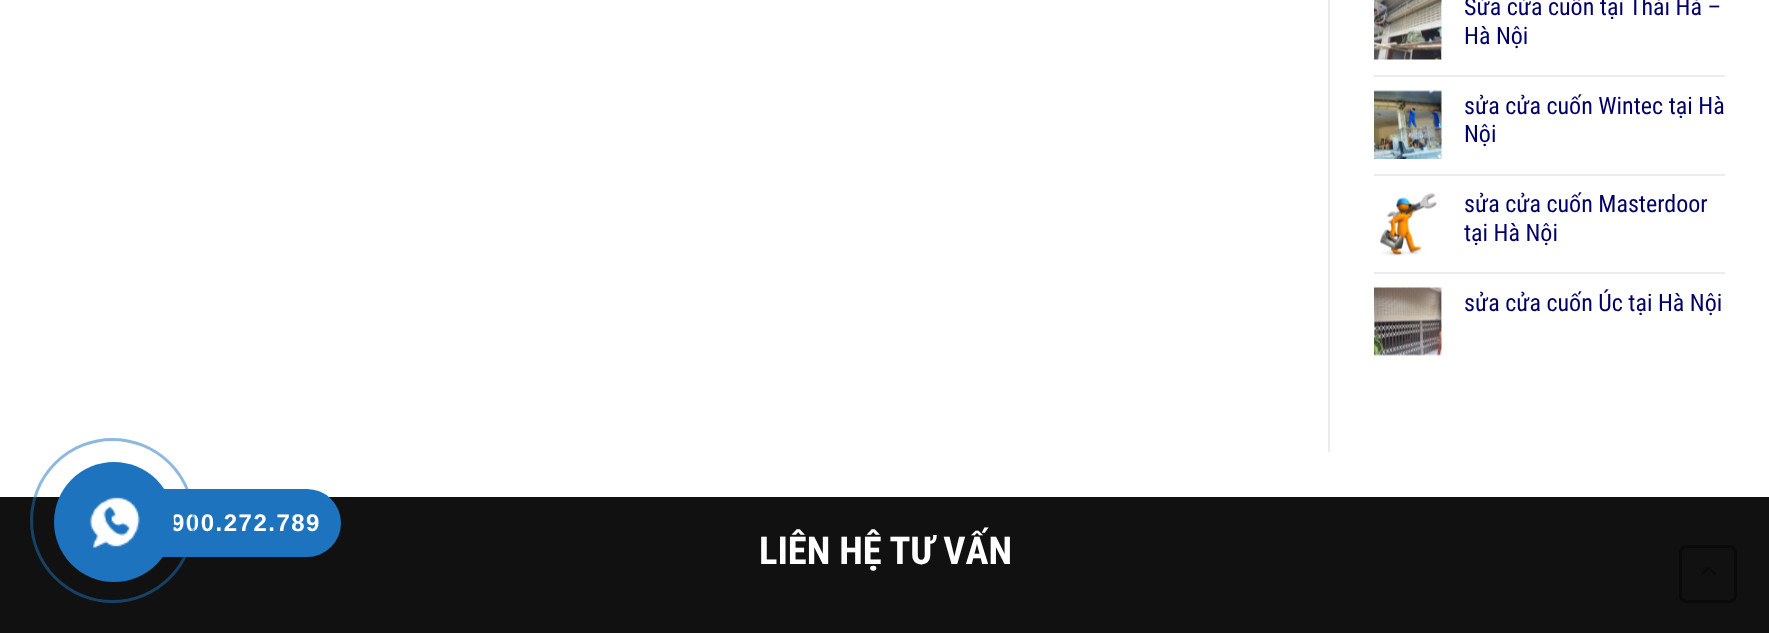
<svg xmlns="http://www.w3.org/2000/svg" width="1769" height="633" viewBox="0 0 1769 633">
  <rect width="100%" height="100%" fill="#ffffff"/>
  <rect x="0" y="497" width="1769" height="136" fill="#111111"/>
  <rect x="93" y="489" width="248" height="68" rx="34" fill="#1e73be"/>
  <text x="171" y="531" font-family="Liberation Sans" font-size="24" font-weight="bold" letter-spacing="1.5" fill="#ffffff">900.272.789</text>
  <circle cx="112.5" cy="520.5" r="81" fill="none" stroke="#1e73be" stroke-opacity="0.5" stroke-width="3"/>
  <circle cx="114" cy="522" r="60" fill="#1e73be"/>
  <image x="89" y="497" width="51" height="51" href="img1.png"/>
  <rect x="1328" y="0" width="2" height="452" fill="#ececec"/>
  <image x="1374" y="0" width="68" height="60" href="img2.png"/>
  <text x="1464" y="15" font-family="Roboto Condensed" font-size="24" fill="#000068">Sửa cửa cuốn tại Thái Hà –</text>
  <text x="1464" y="44" font-family="Roboto Condensed" font-size="24" fill="#000068">Hà Nội</text>
  <rect x="1374" y="75" width="351" height="2" fill="#ececec"/>
  <image x="1374" y="90" width="68" height="69" href="img3.png"/>
  <text x="1464" y="114" font-family="Roboto Condensed" font-size="24" fill="#000068">sửa cửa cuốn Wintec tại Hà</text>
  <text x="1464" y="142" font-family="Roboto Condensed" font-size="24" fill="#000068">Nội</text>
  <rect x="1374" y="174" width="351" height="2" fill="#ececec"/>
  <image x="1380" y="193" width="57" height="63" href="img4.png"/>
  <text x="1464" y="212" font-family="Roboto Condensed" font-size="24" fill="#000068">sửa cửa cuốn Masterdoor</text>
  <text x="1464" y="241" font-family="Roboto Condensed" font-size="24" fill="#000068">tại Hà Nội</text>
  <rect x="1374" y="272" width="351" height="2" fill="#ececec"/>
  <image x="1374" y="287" width="68" height="69" href="img5.png"/>
  <text x="1464" y="311" font-family="Roboto Condensed" font-size="24" fill="#000068">sửa cửa cuốn Úc tại Hà Nội</text>
  <text x="759" y="564" font-family="Roboto Condensed" font-size="38.5" font-weight="bold" fill="#ffffff">LIÊN HỆ TƯ VẤN</text>
  <rect x="1680.5" y="546.5" width="55" height="55" rx="6.5" fill="none" stroke="#0a0a0a" stroke-width="3"/>
  <image x="1701" y="567" width="15" height="8" href="img6.png"/>
</svg>
